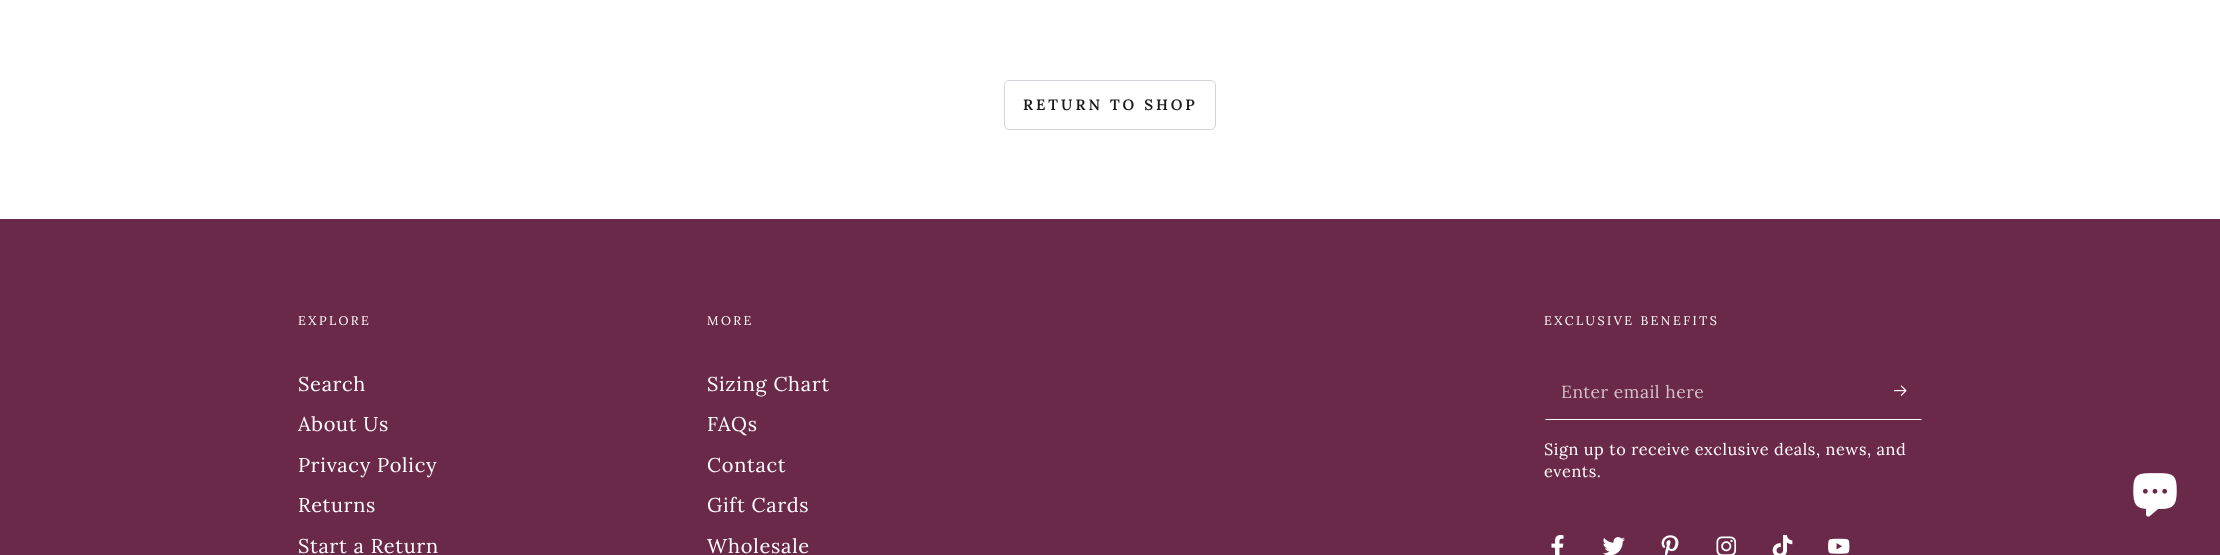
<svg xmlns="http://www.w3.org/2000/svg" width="2220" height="555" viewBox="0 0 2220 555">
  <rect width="100%" height="100%" fill="#ffffff"/>
  <rect x="1004.5" y="80.5" width="211" height="49" rx="4.5" fill="none" stroke="#d2d5d9"/>
  <text x="1023" y="110" font-family="Lora" font-size="15" font-weight="600" letter-spacing="3" fill="#1a1b18">RETURN TO SHOP</text>
  <rect x="0" y="219" width="2220" height="336" fill="#6a2948"/>
  <text x="298" y="325" font-family="Lora" font-size="12.5" letter-spacing="2.5" fill="#ffffff">EXPLORE</text>
  <text x="298" y="391" font-family="Lora" font-size="20" letter-spacing="0.75" fill="#ffffff">Search</text>
  <text x="298" y="431" font-family="Lora" font-size="20" letter-spacing="0.75" fill="#ffffff">About Us</text>
  <text x="298" y="472" font-family="Lora" font-size="20" letter-spacing="0.75" fill="#ffffff">Privacy Policy</text>
  <text x="298" y="512" font-family="Lora" font-size="20" letter-spacing="0.75" fill="#ffffff">Returns</text>
  <text x="298" y="553" font-family="Lora" font-size="20" letter-spacing="0.75" fill="#ffffff">Start a Return</text>
  <text x="707" y="325" font-family="Lora" font-size="12.5" letter-spacing="2.5" fill="#ffffff">MORE</text>
  <text x="707" y="391" font-family="Lora" font-size="20" letter-spacing="0.75" fill="#ffffff">Sizing Chart</text>
  <text x="707" y="431" font-family="Lora" font-size="20" letter-spacing="0.75" fill="#ffffff">FAQs</text>
  <text x="707" y="472" font-family="Lora" font-size="20" letter-spacing="0.75" fill="#ffffff">Contact</text>
  <text x="707" y="512" font-family="Lora" font-size="20" letter-spacing="0.75" fill="#ffffff">Gift Cards</text>
  <text x="707" y="553" font-family="Lora" font-size="20" letter-spacing="0.75" fill="#ffffff">Wholesale</text>
  <text x="1544" y="325" font-family="Lora" font-size="12.5" letter-spacing="2.5" fill="#ffffff">EXCLUSIVE BENEFITS</text>
  <path d="M1922 420H1545L1546 419H1921Z" fill="#ffffff"/>
  <text x="1561" y="398" font-family="Lora" font-size="17.5" letter-spacing="0.5" fill="#d2bfc8">Enter email here</text>
  <image x="1894" y="385" width="13" height="11" href="img1.png"/>
  <text x="1544" y="455" font-family="Lora" font-size="16.25" letter-spacing="0.6" fill="#ffffff">Sign up to receive exclusive deals, news, and</text>
  <text x="1544" y="477" font-family="Lora" font-size="16.25" letter-spacing="0.6" fill="#ffffff">events.</text>
  <image x="1551" y="535" width="13" height="20" href="img2.png"/>
  <image x="1603" y="537" width="22" height="18" href="img3.png"/>
  <image x="1661" y="535" width="18" height="20" href="img4.png"/>
  <image x="1716" y="536" width="21" height="19" href="img5.png"/>
  <image x="1772" y="535" width="21" height="20" href="img6.png"/>
  <image x="1828" y="538" width="22" height="16" href="img7.png"/>
  <image x="2133" y="473" width="44" height="44" href="img8.png"/>
</svg>
